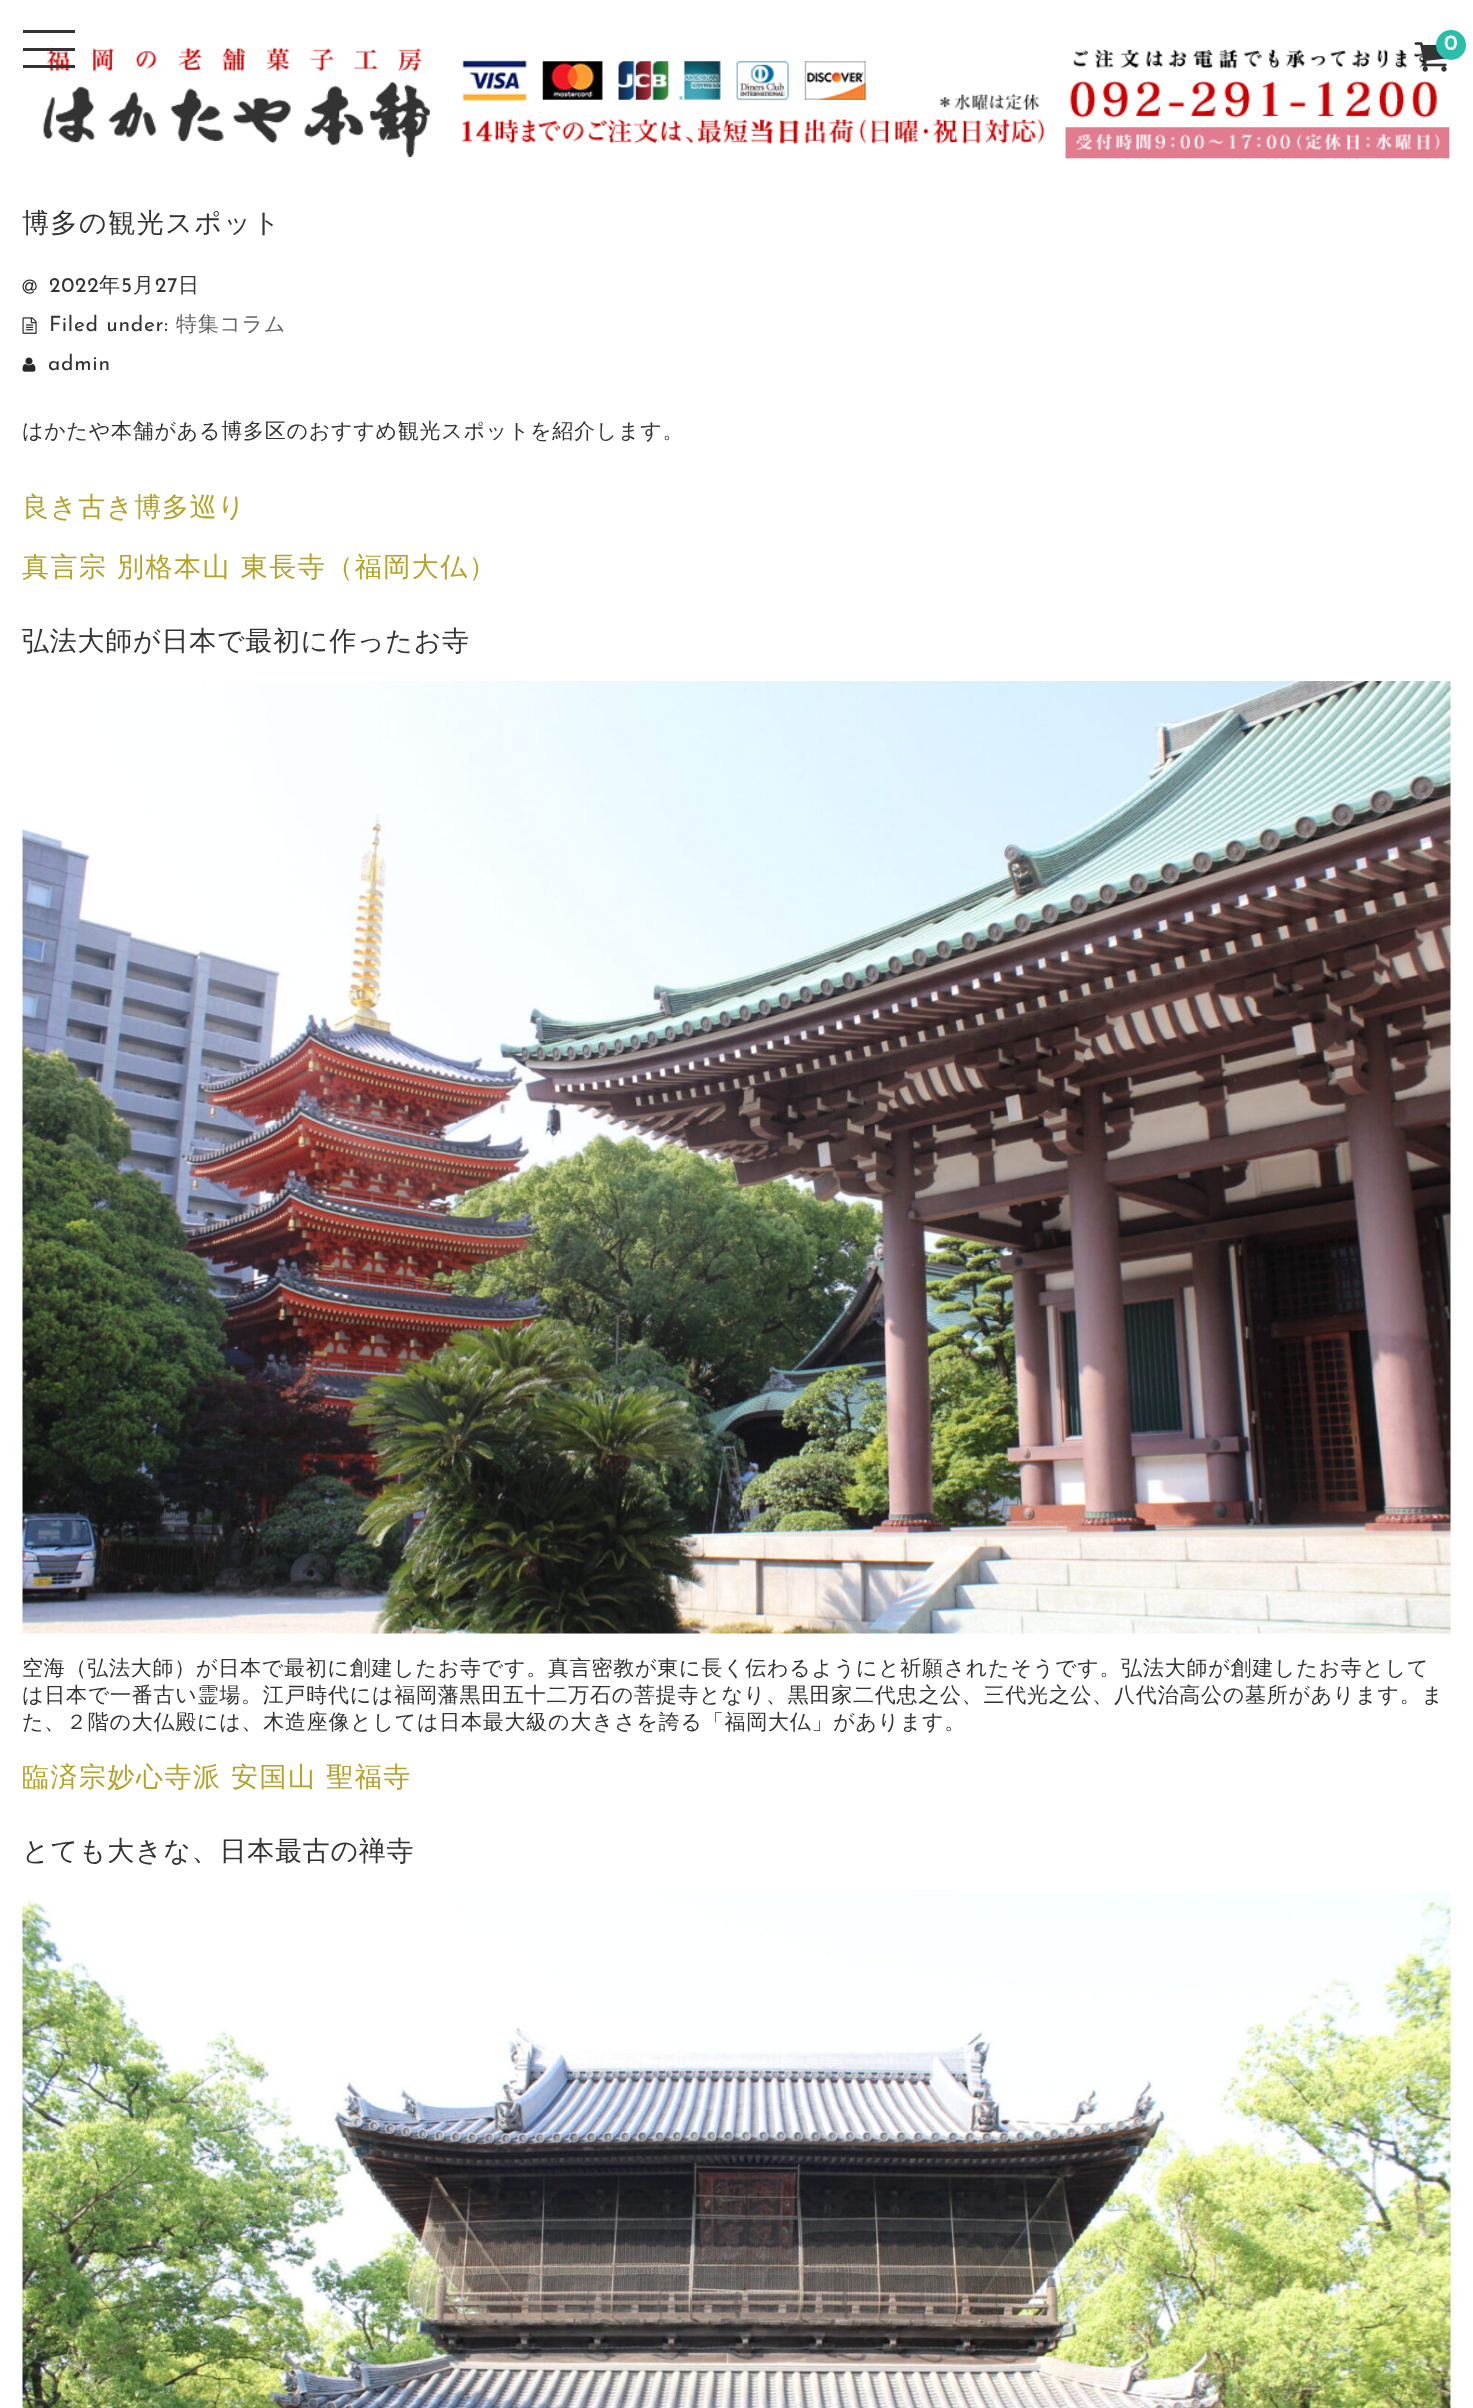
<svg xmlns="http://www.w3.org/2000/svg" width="1473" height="2408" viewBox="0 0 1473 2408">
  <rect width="100%" height="100%" fill="#ffffff"/>
  <rect x="23" y="30" width="52" height="3" fill="#333333"/>
  <image x="43" y="47" width="1407" height="112" href="img2.png"/>
  <rect x="23" y="48" width="52" height="3" fill="#333333"/>
  <rect x="23" y="65" width="52" height="3" fill="#333333"/>
  <image x="1414" y="42" width="33" height="30" href="img1.png"/>
  <circle cx="1451" cy="45" r="15" fill="#2abfab"/>
  <text x="1444" y="50" font-family="Josefin Sans" font-size="21" font-weight="bold" letter-spacing="0.75" fill="#ffffff">0</text>
  <text x="22" y="232" font-family="WenQuanYi Zen Hei" font-size="27" font-weight="500" letter-spacing="1.5" fill="#333333">博多の観光スポット</text>
  <image x="22" y="279" width="15" height="15" href="img3.png"/>
  <text x="49" y="292" font-family="Josefin Sans" font-size="21" font-weight="100" letter-spacing="0.75" fill="#333333">2022</text>
  <text x="99" y="292" font-family="WenQuanYi Zen Hei" font-size="21" font-weight="500" letter-spacing="0.75" fill="#333333">年</text>
  <text x="121" y="292" font-family="Josefin Sans" font-size="21" font-weight="100" letter-spacing="0.75" fill="#333333">5</text>
  <text x="133" y="292" font-family="WenQuanYi Zen Hei" font-size="21" font-weight="500" letter-spacing="0.75" fill="#333333">月</text>
  <text x="155" y="292" font-family="Josefin Sans" font-size="21" font-weight="100" letter-spacing="0.75" fill="#333333">27</text>
  <text x="178" y="292" font-family="WenQuanYi Zen Hei" font-size="21" font-weight="500" letter-spacing="0.75" fill="#333333">日</text>
  <image x="22" y="317" width="15" height="17" href="img4.png"/>
  <text x="49" y="331" font-family="Josefin Sans" font-size="21" font-weight="100" letter-spacing="0.75" fill="#333333">Filed under:</text>
  <text x="176" y="331" font-family="WenQuanYi Zen Hei" font-size="21" font-weight="500" letter-spacing="0.75" fill="#666666">特集コラム</text>
  <image x="22" y="357" width="14" height="15" href="img5.png"/>
  <text x="48" y="370" font-family="Josefin Sans" font-size="21" font-weight="100" letter-spacing="0.75" fill="#333333">admin</text>
  <text x="22" y="438" font-family="WenQuanYi Zen Hei" font-size="21" font-weight="500" letter-spacing="0.75" fill="#333333">はかたや本舗がある博多区のおすすめ観光スポットを紹介します。</text>
  <text x="22" y="516" font-family="WenQuanYi Zen Hei" font-size="27" font-weight="500" letter-spacing="0.75" fill="#b5a226">良き古き博多巡り</text>
  <text x="22" y="576" font-family="WenQuanYi Zen Hei" font-size="27" font-weight="500" letter-spacing="1.5" fill="#b5a226">真言宗 別格本山 東長寺（福岡大仏）</text>
  <text x="22" y="650" font-family="WenQuanYi Zen Hei" font-size="27" font-weight="500" letter-spacing="0.75" fill="#333333">弘法大師が日本で最初に作ったお寺</text>
  <image x="22" y="681" width="1429" height="953" href="img6.png"/>
  <text x="22" y="1675" font-family="WenQuanYi Zen Hei" font-size="21" font-weight="500" letter-spacing="0.75" fill="#333333">空海（弘法大師）が日本で最初に創建したお寺です。真言密教が東に長く伝わるようにと祈願されたそうです。弘法大師が創建したお寺として</text>
  <text x="22" y="1702" font-family="WenQuanYi Zen Hei" font-size="21" font-weight="500" letter-spacing="0.75" fill="#333333">は日本で一番古い霊場。江戸時代には福岡藩黒田五十二万石の菩提寺となり、黒田家二代忠之公、三代光之公、八代治高公の墓所があります。ま</text>
  <text x="22" y="1729" font-family="WenQuanYi Zen Hei" font-size="21" font-weight="500" letter-spacing="0.75" fill="#333333">た、２階の大仏殿には、木造座像としては日本最大級の大きさを誇る「福岡大仏」があります。</text>
  <text x="22" y="1786" font-family="WenQuanYi Zen Hei" font-size="27" font-weight="500" letter-spacing="1.5" fill="#b5a226">臨済宗妙心寺派 安国山 聖福寺</text>
  <text x="22" y="1860" font-family="WenQuanYi Zen Hei" font-size="27" font-weight="500" letter-spacing="0.75" fill="#333333">とても大きな、日本最古の禅寺</text>
  <image x="22" y="1891" width="1429" height="517" href="img7.png"/>
</svg>
